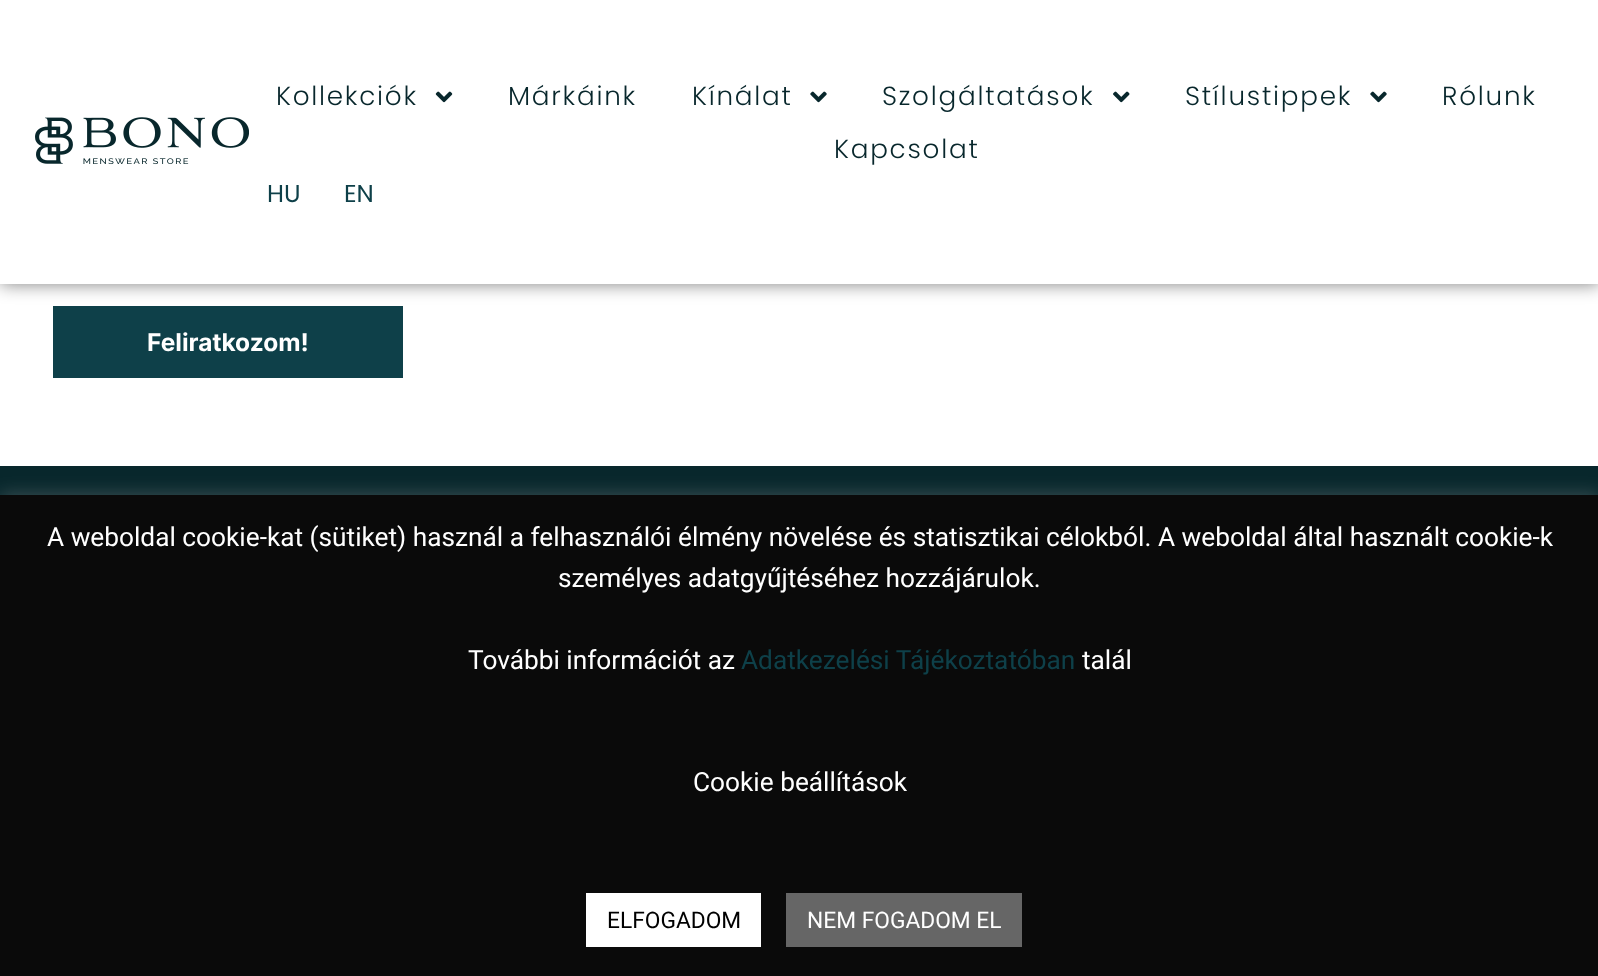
<svg xmlns="http://www.w3.org/2000/svg" width="1598" height="976" viewBox="0 0 1598 976">
  <defs>
    <filter id="blur1" x="-50%" y="-200%" width="200%" height="500%"><feGaussianBlur stdDeviation="9"/></filter>
  </defs>
  <rect width="100%" height="100%" fill="#ffffff"/>
  <rect x="53" y="306" width="350" height="72" fill="#0e4049"/>
  <rect x="0" y="0" width="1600" height="284" fill="#000000" fill-opacity="0.5" filter="url(#blur1)"/>
  <rect x="0" y="0" width="1598" height="284" fill="#ffffff"/>
  <image x="35" y="117" width="214" height="48" href="img1.png"/>
  <text x="276" y="105" font-family="Poppins" font-size="26.25" font-weight="300" letter-spacing="1.75" fill="#08272c">Kollekciók</text>
  <image x="435" y="91" width="18" height="12" href="img2.png"/>
  <text x="508" y="105" font-family="Poppins" font-size="26.25" font-weight="300" letter-spacing="1.75" fill="#08272c">Márkáink</text>
  <text x="692" y="105" font-family="Poppins" font-size="26.25" font-weight="300" letter-spacing="1.75" fill="#08272c">Kínálat</text>
  <image x="810" y="91" width="17" height="12" href="img3.png"/>
  <text x="882" y="105" font-family="Poppins" font-size="26.25" font-weight="300" letter-spacing="1.75" fill="#08272c">Szolgáltatások</text>
  <image x="1113" y="91" width="17" height="12" href="img4.png"/>
  <text x="1185" y="105" font-family="Poppins" font-size="26.25" font-weight="300" letter-spacing="1.75" fill="#08272c">Stílustippek</text>
  <image x="1370" y="91" width="17" height="12" href="img3.png"/>
  <text x="1442" y="105" font-family="Poppins" font-size="26.25" font-weight="300" letter-spacing="1.75" fill="#08272c">Rólunk</text>
  <text x="834" y="158" font-family="Poppins" font-size="26.25" font-weight="300" letter-spacing="1.75" fill="#08272c">Kapcsolat</text>
  <text x="267" y="202" font-family="Poppins" font-size="24.5" fill="#0e4049">HU</text>
  <text x="344" y="202" font-family="Poppins" font-size="24.5" fill="#0e4049">EN</text>
  <text x="147" y="351" font-family="Inter" font-size="24.5" font-weight="bold" fill="#ffffff">Feliratkozom!</text>
  <rect x="0" y="466" width="1598" height="29" fill="#08272c"/>
  <rect x="0" y="494" width="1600" height="481" fill="#acabab" fill-opacity="0.3" filter="url(#blur1)"/>
  <rect x="0" y="495" width="1598" height="481" fill="#0a0a0a"/>
  <text x="47" y="546" font-family="Roboto" font-size="26.25" fill="#ffffff">A weboldal cookie-kat (sütiket) használ a felhasználói élmény növelése és statisztikai célokból. A weboldal által használt cookie-k</text>
  <text x="558" y="587" font-family="Roboto" font-size="26.25" fill="#ffffff">személyes adatgyűjtéséhez hozzájárulok.</text>
  <text x="468" y="669" font-family="Roboto" font-size="26.25" fill="#ffffff">További információt az</text>
  <text x="741" y="669" font-family="Roboto" font-size="26.25" fill="#0e4049">Adatkezelési Tájékoztatóban</text>
  <text x="1082" y="669" font-family="Roboto" font-size="26.25" fill="#ffffff">talál</text>
  <text x="693" y="791" font-family="Roboto" font-size="26.25" fill="#ffffff">Cookie beállítások</text>
  <rect x="586" y="893" width="175" height="54" fill="#ffffff"/>
  <text x="607" y="928" font-family="Roboto" font-size="22.75" fill="#000000">ELFOGADOM</text>
  <rect x="786" y="893" width="236" height="54" fill="#666666"/>
  <text x="807" y="928" font-family="Roboto" font-size="22.75" fill="#ffffff">NEM FOGADOM EL</text>
</svg>
